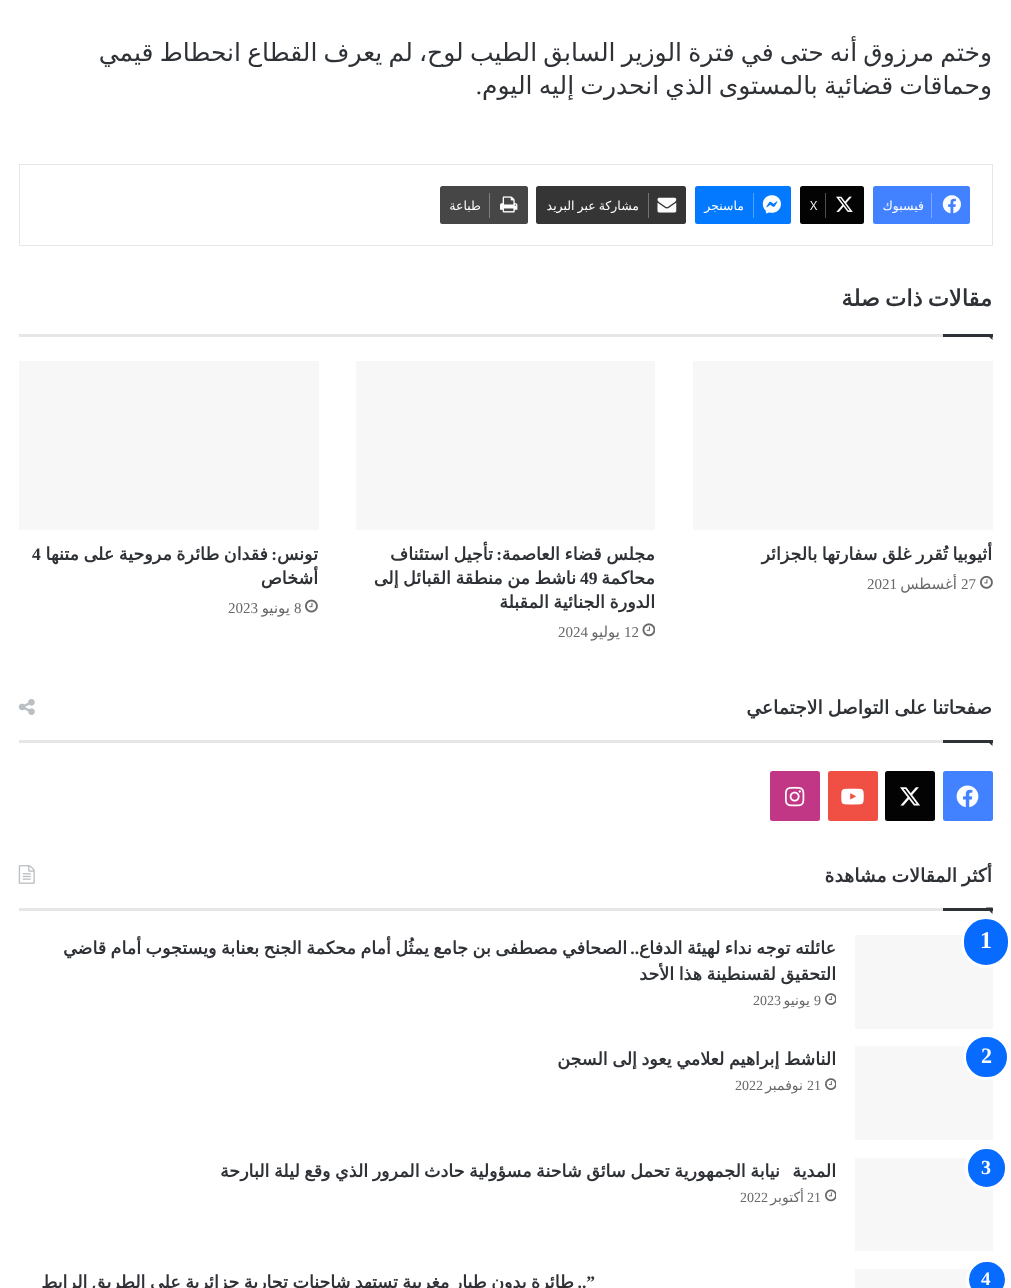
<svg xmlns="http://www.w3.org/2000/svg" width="1011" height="1288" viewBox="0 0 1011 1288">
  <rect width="100%" height="100%" fill="#ffffff"/>
  <text x="992" y="61" word-spacing="-1.75" font-family="DejaVu Sans" font-size="25" direction="rtl" fill="#2e3136">وختم مرزوق أنه حتى في فترة الوزير السابق الطيب لوح، لم يعرف القطاع انحطاط قيمي</text>
  <text x="992" y="94" word-spacing="-1.75" font-family="DejaVu Sans" font-size="25" direction="rtl" fill="#2e3136">وحماقات قضائية بالمستوى الذي انحدرت إليه اليوم</text>
  <text x="482" y="94" font-family="Liberation Serif" font-size="25" direction="rtl" fill="#2e3136">.</text>
  <rect x="19.5" y="164.5" width="973" height="81" fill="none" stroke="#e6e6e6"/>
  <rect x="873" y="186" width="97" height="38" rx="2.5" fill="#4281ff"/>
  <image x="942" y="195" width="19" height="19" href="img1.png"/>
  <rect x="931" y="193" width="1" height="25" fill="#7ba7ff"/>
  <text x="924" y="210" font-family="DejaVu Sans" font-size="12.5" direction="rtl" fill="#ffffff">فيسبوك</text>
  <rect x="800" y="186" width="64" height="38" rx="2.5" fill="#030303"/>
  <image x="836" y="196" width="17" height="16" href="img2.png"/>
  <rect x="825" y="193" width="1" height="25" fill="#4f4f4f"/>
  <text x="810" y="210" font-family="Open Sans" font-size="12.5" fill="#ffffff">X</text>
  <rect x="695" y="186" width="96" height="38" rx="2.5" fill="#0379ff"/>
  <image x="762" y="195" width="19" height="19" href="img3.png"/>
  <rect x="753" y="193" width="1" height="25" fill="#4fa1ff"/>
  <text x="744" y="210" font-family="DejaVu Sans" font-size="12.5" direction="rtl" fill="#ffffff">ماسنجر</text>
  <rect x="536" y="186" width="150" height="38" rx="2.5" fill="#353535"/>
  <image x="657" y="197" width="20" height="16" href="img4.png"/>
  <rect x="648" y="193" width="1" height="25" fill="#727272"/>
  <text x="639" y="210" word-spacing="-1" font-family="DejaVu Sans" font-size="12.5" direction="rtl" fill="#ffffff">مشاركة عبر البريد</text>
  <rect x="440" y="186" width="88" height="38" rx="2.5" fill="#464646"/>
  <image x="500" y="196" width="18" height="17" href="img5.png"/>
  <rect x="489" y="193" width="1" height="25" fill="#7e7e7e"/>
  <text x="481" y="210" font-family="DejaVu Sans" font-size="12.5" direction="rtl" fill="#ffffff">طباعة</text>
  <rect x="19" y="334" width="924" height="3" fill="#e6e6e6"/>
  <text x="992" y="306" word-spacing="-2" font-family="DejaVu Sans" font-size="22.5" font-weight="bold" direction="rtl" fill="#2e3136">مقالات ذات صلة</text>
  <path d="M986 334H992.5V340Z" fill="#2e3136"/>
  <rect x="943" y="334" width="50" height="3" fill="#2e3136"/>
  <rect x="693" y="361" width="300" height="169" fill="#f7f7f7"/>
  <text x="992" y="560" word-spacing="-1" font-family="DejaVu Sans" font-size="17.5" font-weight="bold" direction="rtl" fill="#2e3136">أثيوبيا تُقرر غلق سفارتها بالجزائر</text>
  <image x="980" y="575" width="13" height="14" href="img6.png"/>
  <text x="961" y="589" font-family="Liberation Serif" font-size="15" fill="#686868">27</text>
  <text x="957" y="589" font-family="DejaVu Sans" font-size="15" direction="rtl" fill="#686868">أغسطس</text>
  <text x="867" y="589" font-family="Liberation Serif" font-size="15" fill="#686868">2021</text>
  <rect x="356" y="361" width="299" height="169" fill="#f7f7f7"/>
  <text x="655" y="560" word-spacing="-1" font-family="DejaVu Sans" font-size="17.5" font-weight="bold" direction="rtl" fill="#2e3136">مجلس قضاء العاصمة</text>
  <text x="502" y="560" font-family="Liberation Serif" font-size="17.5" font-weight="bold" direction="rtl" fill="#2e3136">:</text>
  <text x="493" y="560" word-spacing="-1" font-family="DejaVu Sans" font-size="17.5" font-weight="bold" direction="rtl" fill="#2e3136">تأجيل استئناف</text>
  <text x="655" y="584" font-family="DejaVu Sans" font-size="17.5" font-weight="bold" direction="rtl" fill="#2e3136">محاكمة</text>
  <text x="580" y="584" font-family="Liberation Serif" font-size="17.5" font-weight="bold" fill="#2e3136">49</text>
  <text x="576" y="584" word-spacing="-1" font-family="DejaVu Sans" font-size="17.5" font-weight="bold" direction="rtl" fill="#2e3136">ناشط من منطقة القبائل إلى</text>
  <text x="655" y="608" word-spacing="-1" font-family="DejaVu Sans" font-size="17.5" font-weight="bold" direction="rtl" fill="#2e3136">الدورة الجنائية المقبلة</text>
  <image x="642" y="623" width="13" height="14" href="img7.png"/>
  <text x="624" y="637" font-family="Liberation Serif" font-size="15" fill="#686868">12</text>
  <text x="620" y="637" font-family="DejaVu Sans" font-size="15" direction="rtl" fill="#686868">يوليو</text>
  <text x="558" y="637" font-family="Liberation Serif" font-size="15" fill="#686868">2024</text>
  <rect x="19" y="361" width="300" height="169" fill="#f7f7f7"/>
  <text x="318" y="560" font-family="DejaVu Sans" font-size="17.5" font-weight="bold" direction="rtl" fill="#2e3136">تونس</text>
  <text x="277" y="560" font-family="Liberation Serif" font-size="17.5" font-weight="bold" direction="rtl" fill="#2e3136">:</text>
  <text x="268" y="560" word-spacing="-1" font-family="DejaVu Sans" font-size="17.5" font-weight="bold" direction="rtl" fill="#2e3136">فقدان طائرة مروحية على متنها</text>
  <text x="32" y="560" font-family="Liberation Serif" font-size="17.5" font-weight="bold" fill="#2e3136">4</text>
  <text x="318" y="584" font-family="DejaVu Sans" font-size="17.5" font-weight="bold" direction="rtl" fill="#2e3136">أشخاص</text>
  <image x="305" y="599" width="13" height="14" href="img8.png"/>
  <text x="294" y="613" font-family="Liberation Serif" font-size="15" fill="#686868">8</text>
  <text x="290" y="613" font-family="DejaVu Sans" font-size="15" direction="rtl" fill="#686868">يونيو</text>
  <text x="228" y="613" font-family="Liberation Serif" font-size="15" fill="#686868">2023</text>
  <rect x="19" y="740" width="924" height="3" fill="#e6e6e6"/>
  <text x="992" y="714" word-spacing="-1" font-family="DejaVu Sans" font-size="18.75" font-weight="bold" direction="rtl" fill="#2e3136">صفحاتنا على التواصل الاجتماعي</text>
  <image x="18" y="699" width="17" height="16" href="img9.png"/>
  <path d="M986 740H992.5V746Z" fill="#2e3136"/>
  <rect x="943" y="740" width="50" height="3" fill="#2e3136"/>
  <rect x="943" y="771" width="50" height="50" rx="2.5" fill="#4281ff"/>
  <image x="956" y="785" width="23" height="23" href="img10.png"/>
  <rect x="885" y="771" width="50" height="50" rx="2.5" fill="#030303"/>
  <image x="900" y="787" width="20" height="19" href="img11.png"/>
  <rect x="828" y="771" width="50" height="50" rx="2.5" fill="#ef5043"/>
  <image x="841" y="788" width="23" height="17" href="img12.png"/>
  <rect x="770" y="771" width="50" height="50" rx="2.5" fill="#c23785"/>
  <image x="785" y="786" width="20" height="21" href="img13.png"/>
  <rect x="19" y="908" width="924" height="3" fill="#e6e6e6"/>
  <text x="992" y="882" word-spacing="-1" font-family="DejaVu Sans" font-size="18.75" font-weight="bold" direction="rtl" fill="#2e3136">أكثر المقالات مشاهدة</text>
  <image x="18" y="865" width="17" height="19" href="img14.png"/>
  <path d="M986 907.5H992.5V914Z" fill="#2e3136"/>
  <rect x="943" y="908" width="50" height="3" fill="#2e3136"/>
  <rect x="855" y="935" width="138" height="94" fill="#f7f7f7"/>
  <rect x="962.5" y="917.5" width="47" height="49" rx="23.5" fill="#086bff" stroke="#ffffff" stroke-width="3"/>
  <text x="980" y="948" font-family="Liberation Serif" font-size="24" font-weight="bold" fill="#ffffff">1</text>
  <text x="836" y="954" word-spacing="-1.1" font-family="DejaVu Sans" font-size="17.5" font-weight="bold" direction="rtl" fill="#2e3136">عائلته توجه نداء لهيئة الدفاع</text>
  <text x="627" y="954" word-spacing="-1.1" font-family="DejaVu Sans" font-size="17.5" font-weight="bold" direction="rtl" fill="#2e3136">الصحافي مصطفى بن جامع يمثُل أمام محكمة الجنح بعنابة ويستجوب أمام قاضي</text>
  <text x="639" y="954" font-family="Liberation Serif" font-size="17.5" font-weight="bold" direction="rtl" fill="#2e3136">..</text>
  <text x="836" y="980" word-spacing="-1" font-family="DejaVu Sans" font-size="17.5" font-weight="bold" direction="rtl" fill="#2e3136">التحقيق لقسنطينة هذا الأحد</text>
  <image x="825" y="993" width="11" height="12" href="img15.png"/>
  <text x="814" y="1005" font-family="Liberation Serif" font-size="14" fill="#686868">9</text>
  <text x="810" y="1005" font-family="DejaVu Sans" font-size="14" direction="rtl" fill="#686868">يونيو</text>
  <text x="753" y="1005" font-family="Liberation Serif" font-size="14" fill="#686868">2023</text>
  <rect x="855" y="1046" width="138" height="94" fill="#f7f7f7"/>
  <rect x="964.5" y="1035.5" width="44" height="43" rx="21.5" fill="#086bff" stroke="#ffffff" stroke-width="3"/>
  <text x="981" y="1063" font-family="Liberation Serif" font-size="22" font-weight="bold" fill="#ffffff">2</text>
  <text x="836" y="1065" word-spacing="-1" font-family="DejaVu Sans" font-size="17.5" font-weight="bold" direction="rtl" fill="#2e3136">الناشط إبراهيم لعلامي يعود إلى السجن</text>
  <image x="825" y="1078" width="11" height="12" href="img15.png"/>
  <text x="807" y="1090" font-family="Liberation Serif" font-size="14" fill="#686868">21</text>
  <text x="803" y="1090" font-family="DejaVu Sans" font-size="14" direction="rtl" fill="#686868">نوفمبر</text>
  <text x="735" y="1090" font-family="Liberation Serif" font-size="14" fill="#686868">2022</text>
  <rect x="855" y="1158" width="138" height="93" fill="#f7f7f7"/>
  <rect x="966.5" y="1147.5" width="40" height="41" rx="20" fill="#086bff" stroke="#ffffff" stroke-width="3"/>
  <text x="981" y="1174" font-family="Liberation Serif" font-size="20" font-weight="bold" fill="#ffffff">3</text>
  <text x="836" y="1177" font-family="DejaVu Sans" font-size="17.5" font-weight="bold" direction="rtl" fill="#2e3136">المدية</text>
  <text x="780" y="1177" word-spacing="-1" font-family="DejaVu Sans" font-size="17.5" font-weight="bold" direction="rtl" fill="#2e3136">نيابة الجمهورية تحمل سائق شاحنة مسؤولية حادث المرور الذي وقع ليلة البارحة</text>
  <image x="825" y="1189" width="11" height="13" href="img16.png"/>
  <text x="807" y="1202" font-family="Liberation Serif" font-size="14" fill="#686868">21</text>
  <text x="804" y="1202" font-family="DejaVu Sans" font-size="14" direction="rtl" fill="#686868">أكتوبر</text>
  <text x="740" y="1202" font-family="Liberation Serif" font-size="14" fill="#686868">2022</text>
  <rect x="855" y="1269" width="114" height="19" fill="#f7f7f7"/>
  <rect x="967.5" y="1260.5" width="39" height="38" rx="19" fill="#086bff" stroke="#ffffff" stroke-width="3"/>
  <text x="981" y="1285" font-family="Liberation Serif" font-size="19" font-weight="bold" fill="#ffffff">4</text>
  <text x="574" y="1288" word-spacing="-1.1" font-family="DejaVu Sans" font-size="17.5" font-weight="bold" direction="rtl" fill="#2e3136">طائرة بدون طيار مغربية تستهد شاحنات تجارية جزائرية على الطريق الرابط</text>
  <text x="595" y="1288" font-family="Liberation Serif" font-size="17.5" font-weight="bold" direction="rtl" fill="#2e3136">”..</text>
</svg>
